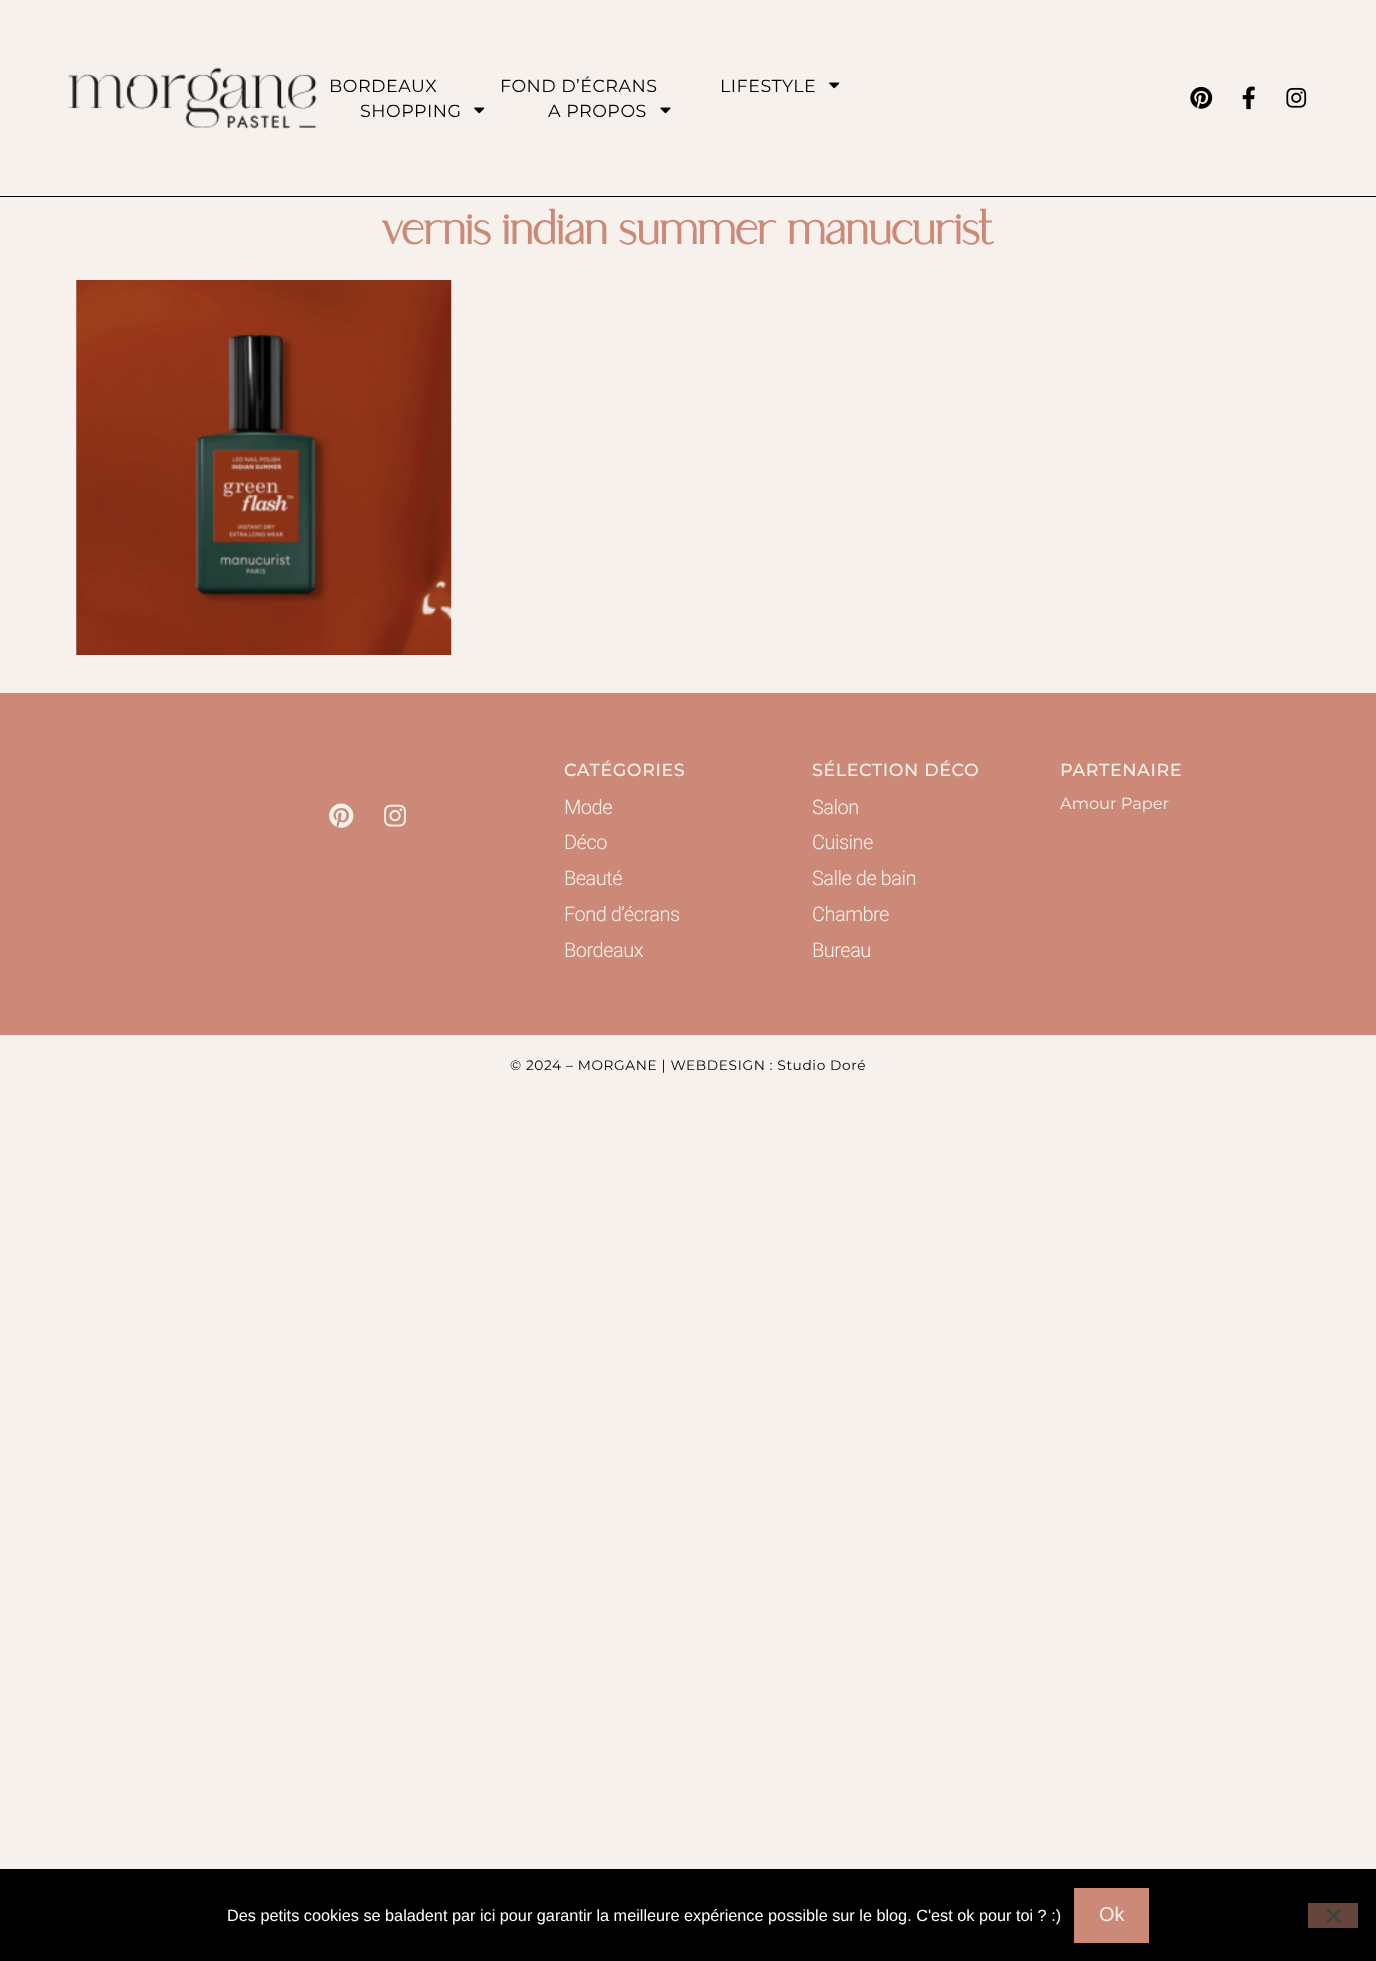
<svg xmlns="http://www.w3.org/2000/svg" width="1376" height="1961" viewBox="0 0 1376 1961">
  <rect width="100%" height="100%" fill="#f7f1ed"/>
  <rect x="0" y="196" width="1376" height="1" fill="#000000"/>
  <image x="68" y="67" width="249" height="62" href="img1.png"/>
  <text x="329" y="92" font-family="Montserrat" font-size="17.5" letter-spacing="0.5" fill="#000000">BORDEAUX</text>
  <text x="500" y="92" font-family="Montserrat" font-size="17.5" letter-spacing="0.5" fill="#000000">FOND D’ÉCRANS</text>
  <text x="720" y="92" font-family="Montserrat" font-size="17.5" letter-spacing="0.5" fill="#000000">LIFESTYLE</text>
  <image x="829" y="82" width="11" height="7" href="img2.png"/>
  <text x="360" y="117" font-family="Montserrat" font-size="17.5" letter-spacing="0.5" fill="#000000">SHOPPING</text>
  <image x="474" y="107" width="11" height="7" href="img2.png"/>
  <text x="548" y="117" font-family="Montserrat" font-size="17.5" letter-spacing="0.5" fill="#000000">A PROPOS</text>
  <image x="660" y="107" width="11" height="7" href="img3.png"/>
  <image x="1190" y="86" width="23" height="23" href="img4.png"/>
  <image x="1242" y="86" width="13" height="24" href="img5.png"/>
  <image x="1286" y="87" width="21" height="21" href="img6.png"/>
  <text x="382" y="244" font-family="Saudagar" font-size="45" font-weight="bold" fill="#cc8978">vernis indian summer manucurist</text>
  <image x="76" y="280" width="376" height="375" href="img7.png"/>
  <rect x="0" y="693" width="1376" height="342" fill="#cc8978"/>
  <text x="564" y="776" font-family="Montserrat" font-size="17.5" font-weight="500" letter-spacing="0.6" fill="#f7f1ed">CATÉGORIES</text>
  <text x="564" y="814" font-family="Roboto" font-size="20" font-weight="300" letter-spacing="-0.5" fill="#f7f1ed">Mode</text>
  <text x="564" y="849" font-family="Roboto" font-size="20" font-weight="300" letter-spacing="-0.5" fill="#f7f1ed">Déco</text>
  <text x="564" y="885" font-family="Roboto" font-size="20" font-weight="300" letter-spacing="-0.5" fill="#f7f1ed">Beauté</text>
  <text x="564" y="921" font-family="Roboto" font-size="20" font-weight="300" letter-spacing="-0.5" fill="#f7f1ed">Fond d’écrans</text>
  <text x="564" y="957" font-family="Roboto" font-size="20" font-weight="300" letter-spacing="-0.5" fill="#f7f1ed">Bordeaux</text>
  <text x="812" y="776" font-family="Montserrat" font-size="17.5" font-weight="500" letter-spacing="0.6" fill="#f7f1ed">SÉLECTION DÉCO</text>
  <text x="812" y="814" font-family="Roboto" font-size="20" font-weight="300" letter-spacing="-0.5" fill="#f7f1ed">Salon</text>
  <text x="812" y="849" font-family="Roboto" font-size="20" font-weight="300" letter-spacing="-0.5" fill="#f7f1ed">Cuisine</text>
  <text x="812" y="885" font-family="Roboto" font-size="20" font-weight="300" letter-spacing="-0.5" fill="#f7f1ed">Salle de bain</text>
  <text x="812" y="921" font-family="Roboto" font-size="20" font-weight="300" letter-spacing="-0.5" fill="#f7f1ed">Chambre</text>
  <text x="812" y="957" font-family="Roboto" font-size="20" font-weight="300" letter-spacing="-0.5" fill="#f7f1ed">Bureau</text>
  <text x="1060" y="776" font-family="Montserrat" font-size="17.5" font-weight="500" letter-spacing="0.6" fill="#f7f1ed">PARTENAIRE</text>
  <text x="1060" y="809" font-family="Montserrat" font-size="16.25" fill="#f7f1ed">Amour Paper</text>
  <image x="329" y="803" width="25" height="25" href="img8.png"/>
  <image x="384" y="804" width="22" height="23" href="img9.png"/>
  <text x="510" y="1070" font-family="Montserrat" font-size="13.75" letter-spacing="0.6" fill="#000000">© 2024 – MORGANE | WEBDESIGN : Studio Doré</text>
  <rect x="0" y="1869" width="1376" height="92" fill="#000000"/>
  <text x="227" y="1921" font-family="Liberation Sans" font-size="16.25" fill="#ffffff">Des petits cookies se baladent par ici pour garantir la meilleure expérience possible sur le blog. C'est ok pour toi ? :)</text>
  <rect x="1074" y="1888" width="75" height="55" fill="#cc8978"/>
  <text x="1099" y="1921" font-family="Liberation Sans" font-size="20" fill="#f7f1ed">Ok</text>
  <rect x="1308" y="1903" width="50" height="25" fill="#66453c"/>
  <path d="M1339.5 1908L1341.5 1910L1328 1923L1326 1921.5Z" fill="#404040"/>
  <path d="M1326 1910L1328 1908L1341.5 1921.5L1339.5 1923Z" fill="#404040"/>
</svg>
